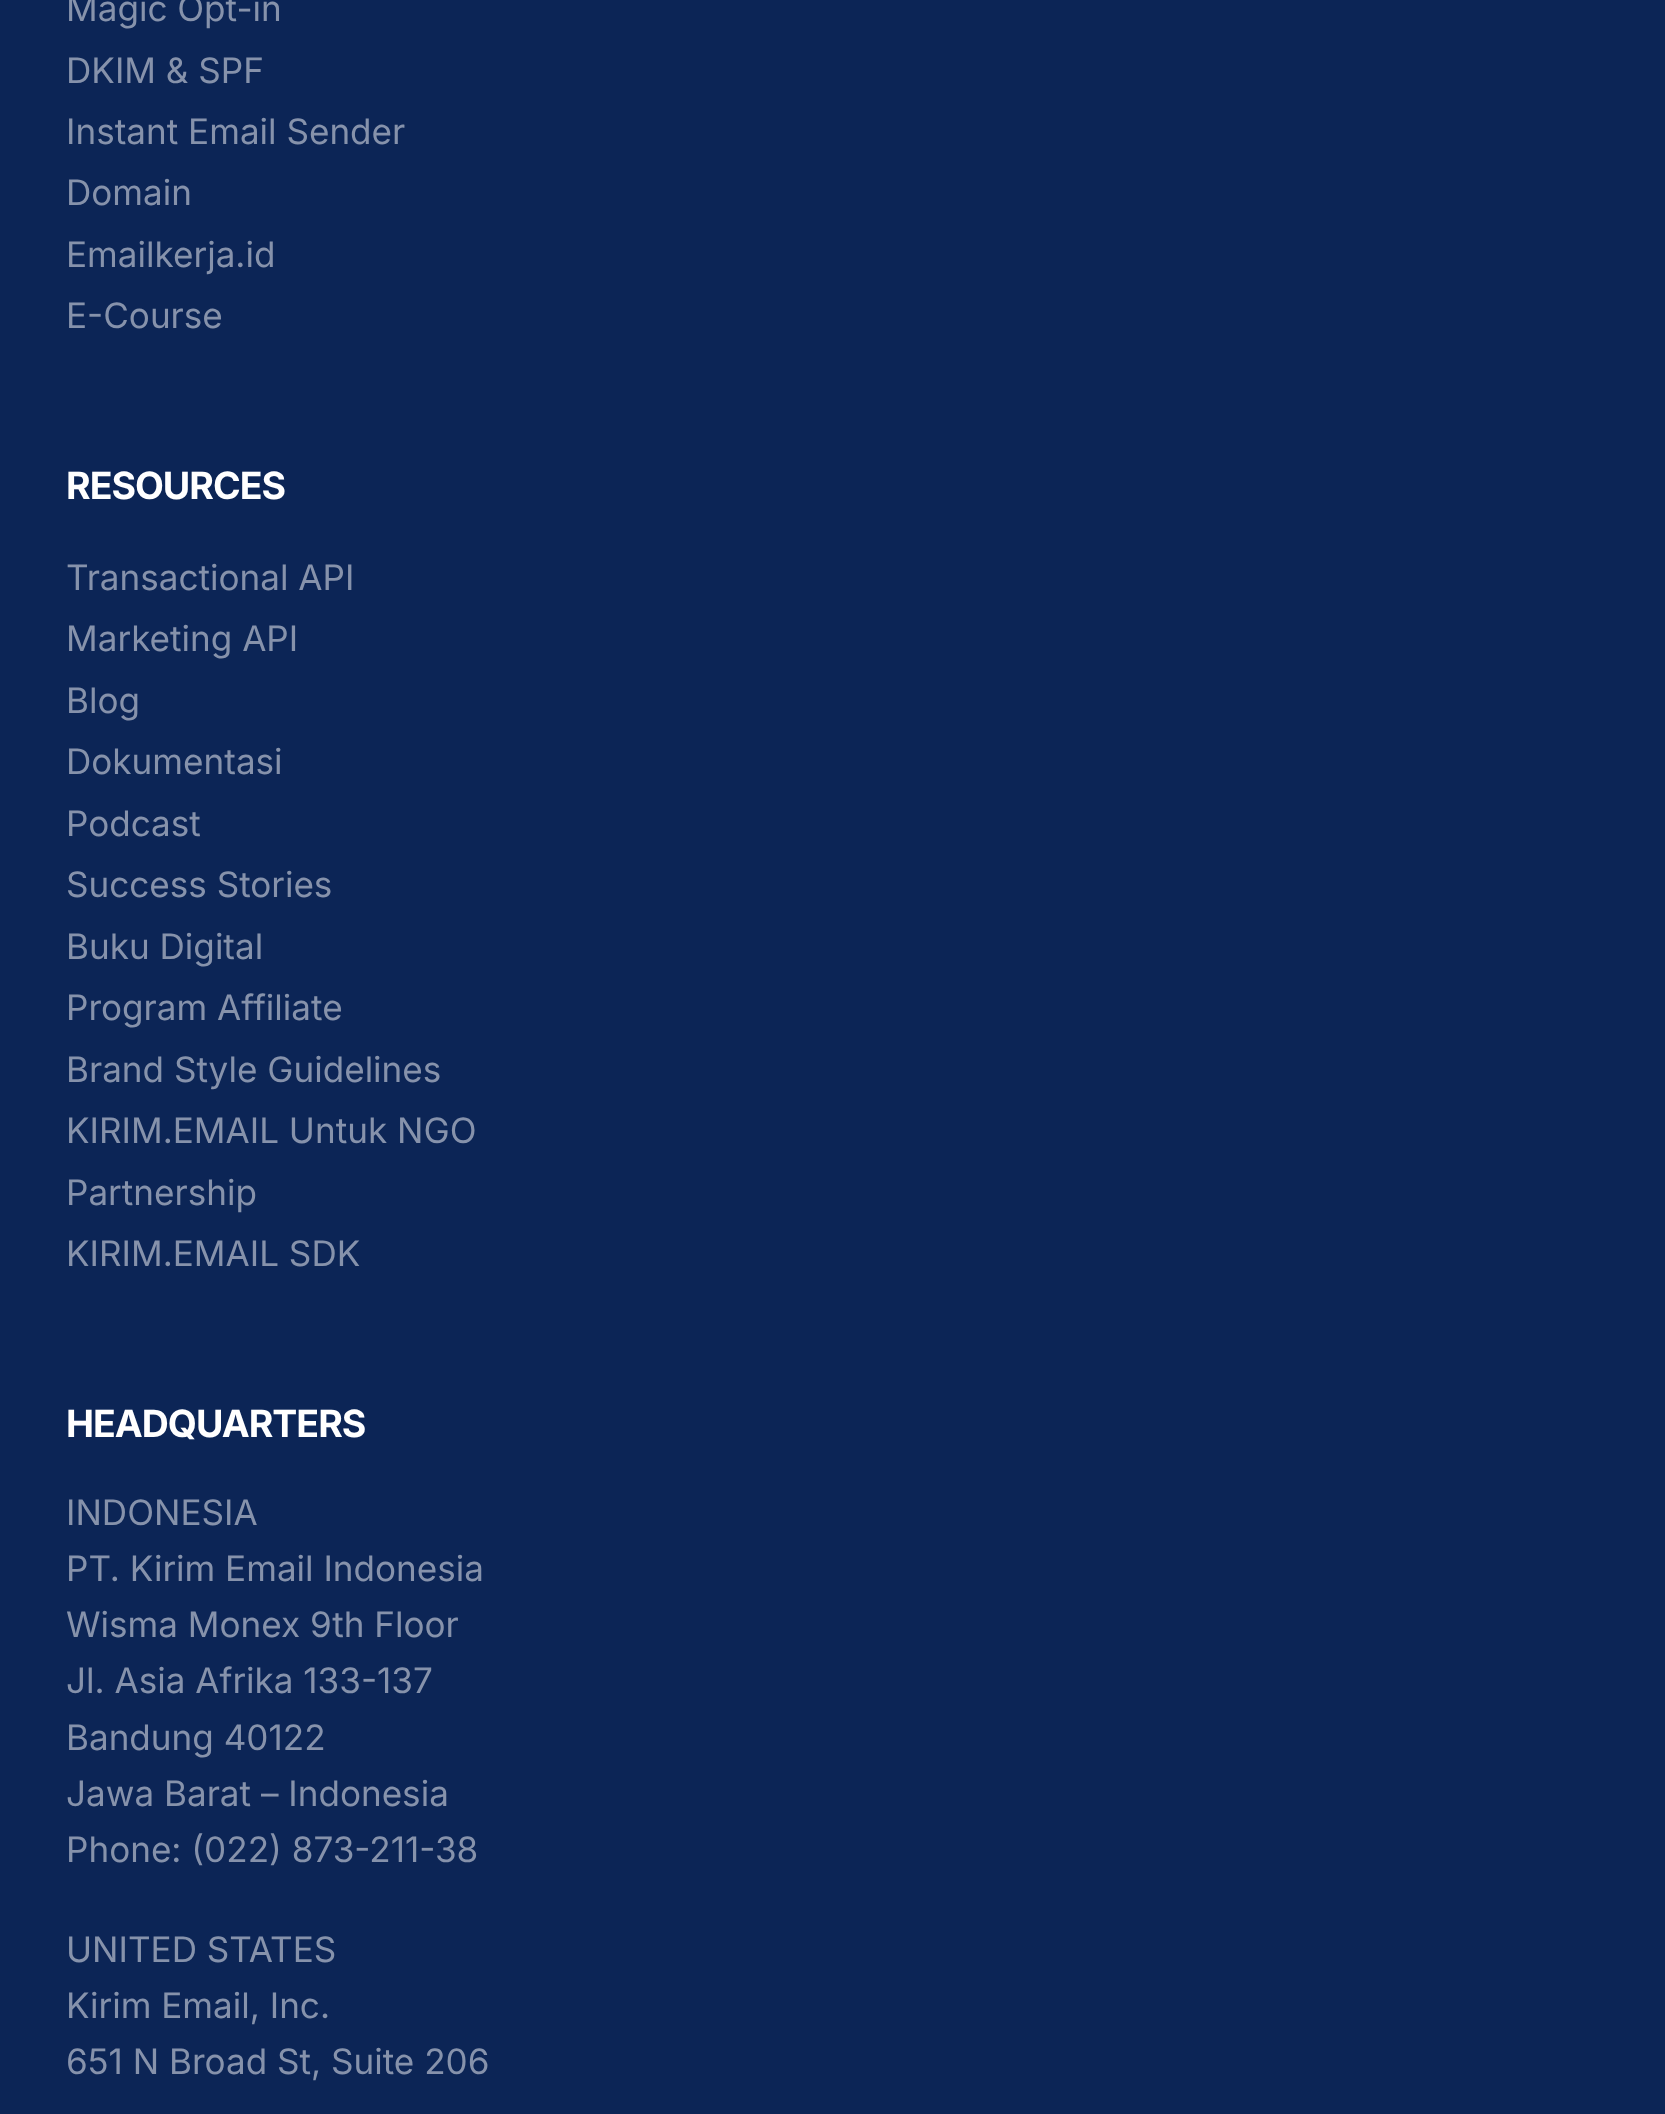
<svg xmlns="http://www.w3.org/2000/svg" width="1665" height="2114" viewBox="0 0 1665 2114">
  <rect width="100%" height="100%" fill="#0c2556"/>
  <text x="66" y="21" font-family="Inter" font-size="35.1" fill="#8692ab">Magic Opt-in</text>
  <text x="66" y="83" font-family="Inter" font-size="35.1" fill="#8692ab">DKIM &amp; SPF</text>
  <text x="66" y="144" font-family="Inter" font-size="35.1" fill="#8692ab">Instant Email Sender</text>
  <text x="66" y="205" font-family="Inter" font-size="35.1" fill="#8692ab">Domain</text>
  <text x="66" y="267" font-family="Inter" font-size="35.1" fill="#8692ab">Emailkerja.id</text>
  <text x="66" y="328" font-family="Inter" font-size="35.1" fill="#8692ab">E-Course</text>
  <text x="66" y="499" font-family="Inter" font-size="37.5" font-weight="bold" letter-spacing="-1" fill="#ffffff">RESOURCES</text>
  <text x="66" y="590" font-family="Inter" font-size="35.1" fill="#8692ab">Transactional API</text>
  <text x="66" y="651" font-family="Inter" font-size="35.1" fill="#8692ab">Marketing API</text>
  <text x="66" y="713" font-family="Inter" font-size="35.1" fill="#8692ab">Blog</text>
  <text x="66" y="774" font-family="Inter" font-size="35.1" fill="#8692ab">Dokumentasi</text>
  <text x="66" y="836" font-family="Inter" font-size="35.1" fill="#8692ab">Podcast</text>
  <text x="66" y="897" font-family="Inter" font-size="35.1" fill="#8692ab">Success Stories</text>
  <text x="66" y="959" font-family="Inter" font-size="35.1" fill="#8692ab">Buku Digital</text>
  <text x="66" y="1020" font-family="Inter" font-size="35.1" fill="#8692ab">Program Affiliate</text>
  <text x="66" y="1082" font-family="Inter" font-size="35.1" fill="#8692ab">Brand Style Guidelines</text>
  <text x="66" y="1143" font-family="Inter" font-size="35.1" fill="#8692ab">KIRIM.EMAIL Untuk NGO</text>
  <text x="66" y="1205" font-family="Inter" font-size="35.1" fill="#8692ab">Partnership</text>
  <text x="66" y="1266" font-family="Inter" font-size="35.1" fill="#8692ab">KIRIM.EMAIL SDK</text>
  <text x="66" y="1437" font-family="Inter" font-size="37.5" font-weight="bold" letter-spacing="-1" fill="#ffffff">HEADQUARTERS</text>
  <text x="66" y="1525" font-family="Inter" font-size="35.1" fill="#8692ab">INDONESIA</text>
  <text x="66" y="1581" font-family="Inter" font-size="35.1" fill="#8692ab">PT. Kirim Email Indonesia</text>
  <text x="66" y="1637" font-family="Inter" font-size="35.1" fill="#8692ab">Wisma Monex 9th Floor</text>
  <text x="66" y="1693" font-family="Inter" font-size="35.1" fill="#8692ab">Jl. Asia Afrika 133-137</text>
  <text x="66" y="1750" font-family="Inter" font-size="35.1" fill="#8692ab">Bandung 40122</text>
  <text x="66" y="1806" font-family="Inter" font-size="35.1" fill="#8692ab">Jawa Barat – Indonesia</text>
  <text x="66" y="1862" font-family="Inter" font-size="35.1" fill="#8692ab">Phone: (022) 873-211-38</text>
  <text x="66" y="1962" font-family="Inter" font-size="35.1" fill="#8692ab">UNITED STATES</text>
  <text x="66" y="2018" font-family="Inter" font-size="35.1" fill="#8692ab">Kirim Email, Inc.</text>
  <text x="66" y="2074" font-family="Inter" font-size="35.1" fill="#8692ab">651 N Broad St, Suite 206</text>
</svg>
